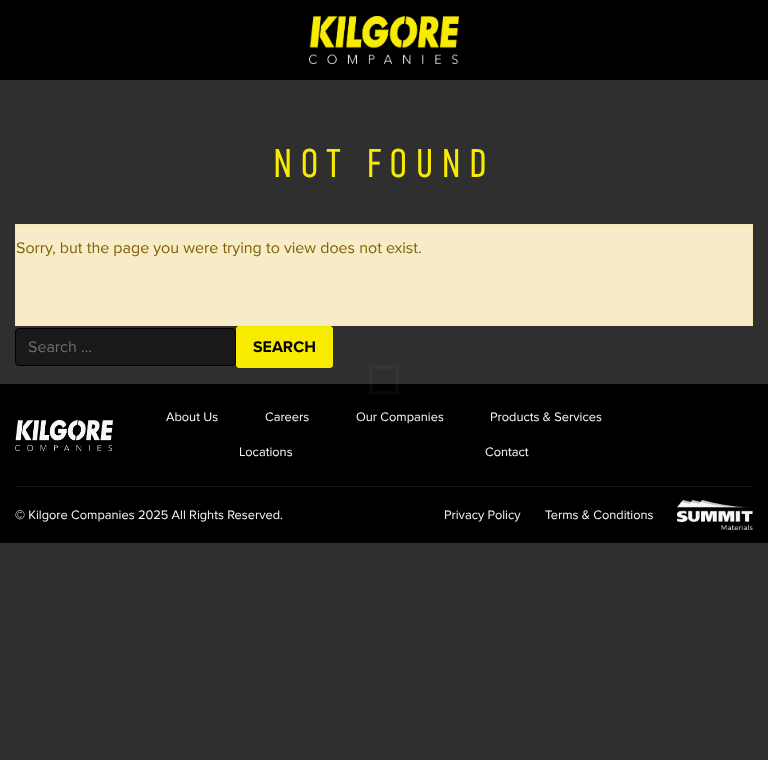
<svg xmlns="http://www.w3.org/2000/svg" width="768" height="760" viewBox="0 0 768 760">
  <rect width="100%" height="100%" fill="#2f2f2f"/>
  <rect x="0" y="0" width="768" height="80" fill="#000000"/>
  <image x="309" y="16" width="150" height="48" href="img1.png"/>
  <text x="273" y="177" font-family="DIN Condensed" font-size="40" font-weight="300" letter-spacing="8" fill="#f7eb00">NOT FOUND</text>
  <rect x="15.5" y="224.5" width="737" height="101" fill="#f7ecc7" stroke="#f7e7b4"/>
  <text x="16" y="253" font-family="Proxima Nova" font-size="16" fill="#816104">Sorry, but the page you were trying to view does not exist.</text>
  <rect x="15.5" y="328.5" width="220" height="37" rx="3.5" fill="#191919" stroke="#000000"/>
  <text x="28" y="352" font-family="Proxima Nova" font-size="16" fill="#697179">Search …</text>
  <rect x="236.5" y="326.5" width="96" height="41" rx="2.5" fill="#f7eb00" stroke="#f7eb00"/>
  <text x="253" y="352" font-family="Proxima Nova" font-size="16" font-weight="bold" fill="#000000">SEARCH</text>
  <rect x="0" y="384" width="768" height="159" fill="#000000"/>
  <rect x="371" y="367" width="26" height="26" fill="none" stroke="#ffffff" stroke-opacity="0.03" stroke-width="4"/>
  <image x="15" y="420" width="98" height="31" href="img2.png"/>
  <text x="166" y="421" font-family="Proxima Nova" font-size="12.8" fill="#f7f7f7">About Us</text>
  <text x="265" y="421" font-family="Proxima Nova" font-size="12.8" fill="#f7f7f7">Careers</text>
  <text x="356" y="421" font-family="Proxima Nova" font-size="12.8" fill="#f7f7f7">Our Companies</text>
  <text x="490" y="421" font-family="Proxima Nova" font-size="12.8" fill="#f7f7f7">Products &amp; Services</text>
  <text x="239" y="456" font-family="Proxima Nova" font-size="12.8" fill="#f7f7f7">Locations</text>
  <text x="485" y="456" font-family="Proxima Nova" font-size="12.8" fill="#f7f7f7">Contact</text>
  <rect x="15" y="486" width="738" height="1" fill="#191919"/>
  <text x="15" y="519" font-family="Proxima Nova" font-size="12.8" fill="#f7f7f7">© Kilgore Companies 2025 All Rights Reserved.</text>
  <text x="444" y="519" font-family="Proxima Nova" font-size="12.8" fill="#f7f7f7">Privacy Policy</text>
  <text x="545" y="519" font-family="Proxima Nova" font-size="12.8" fill="#f7f7f7">Terms &amp; Conditions</text>
  <image x="677" y="500" width="76" height="30" href="img3.png"/>
</svg>
